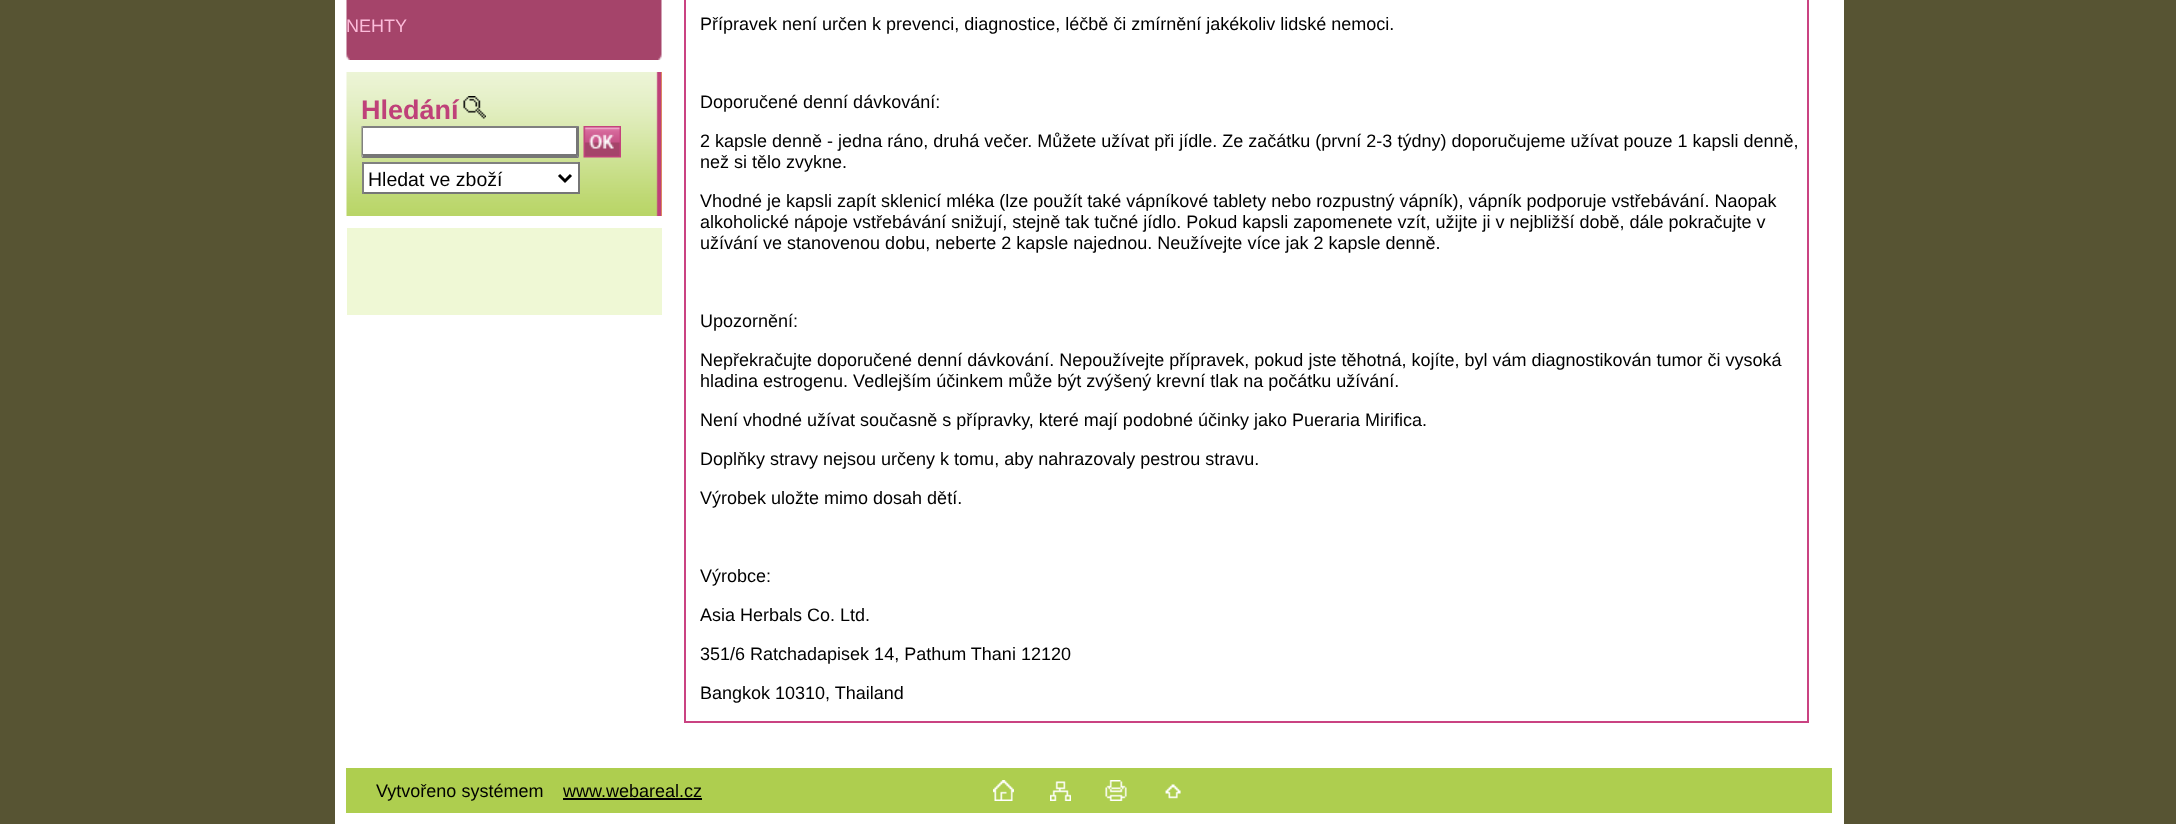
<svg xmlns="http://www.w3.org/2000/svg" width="2176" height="824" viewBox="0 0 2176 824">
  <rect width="100%" height="100%" fill="#575433"/>
  <rect x="335" y="0" width="1509" height="824" fill="#ffffff"/>
  <image x="346" y="0" width="316" height="60" href="img1.png"/>
  <text x="346" y="32" font-family="Liberation Sans" font-size="18" fill="#fcbcda">NEHTY</text>
  <rect x="661" y="72" width="1" height="144" fill="#f9cf4a"/>
  <image x="346" y="72" width="316" height="144" href="img2.png"/>
  <text x="361" y="119" font-family="Liberation Sans" font-size="27" font-weight="bold" fill="#bf4179">Hledání</text>
  <image x="463" y="96" width="23" height="23" href="img3.png"/>
  <rect x="362" y="126" width="217" height="32" fill="#ffffff"/>
  <path d="M362 126H579L576 128H363Z" fill="#808080"/>
  <path d="M579 126V157.5L576 154.5V127.5Z" fill="#767676"/>
  <path d="M579 158H362L363 154H576Z" fill="#767676"/>
  <path d="M361.5 157.5V126L363 127.5V154.5Z" fill="#808080"/>
  <image x="583" y="126" width="38" height="32" href="img4.png"/>
  <rect x="364" y="164" width="214" height="28" fill="#ffffff"/>
  <rect x="362" y="162" width="217" height="2" fill="#808080"/>
  <rect x="578" y="162" width="2" height="32" fill="#767676"/>
  <rect x="362" y="192" width="217" height="2" fill="#767676"/>
  <rect x="362" y="162" width="2" height="32" fill="#808080"/>
  <path d="M559 175L565 181L571 175" fill="none" stroke="#000000" stroke-width="3"/>
  <text x="368" y="186" font-family="Liberation Sans" font-size="19.5" fill="#000000">Hledat ve zboží</text>
  <rect x="347" y="228" width="315" height="87" fill="#eff8d5"/>
  <rect x="685" y="-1" width="1123" height="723" fill="none" stroke="#ca4382" stroke-width="2"/>
  <text x="700" y="30" font-family="Liberation Sans" font-size="18" fill="#000000">Přípravek není určen k prevenci, diagnostice, léčbě či zmírnění jakékoliv lidské nemoci.</text>
  <text x="700" y="108" font-family="Liberation Sans" font-size="18" fill="#000000">Doporučené denní dávkování:</text>
  <text x="700" y="147" font-family="Liberation Sans" font-size="18" fill="#000000">2 kapsle denně - jedna ráno, druhá večer. Můžete užívat při jídle. Ze začátku (první 2-3 týdny) doporučujeme užívat pouze 1 kapsli denně,</text>
  <text x="700" y="168" font-family="Liberation Sans" font-size="18" fill="#000000">než si tělo zvykne.</text>
  <text x="700" y="207" font-family="Liberation Sans" font-size="18" fill="#000000">Vhodné je kapsli zapít sklenicí mléka (lze použít také vápníkové tablety nebo rozpustný vápník), vápník podporuje vstřebávání. Naopak</text>
  <text x="700" y="228" font-family="Liberation Sans" font-size="18" fill="#000000">alkoholické nápoje vstřebávání snižují, stejně tak tučné jídlo. Pokud kapsli zapomenete vzít, užijte ji v nejbližší době, dále pokračujte v</text>
  <text x="700" y="249" font-family="Liberation Sans" font-size="18" fill="#000000">užívání ve stanovenou dobu, neberte 2 kapsle najednou. Neužívejte více jak 2 kapsle denně.</text>
  <text x="700" y="327" font-family="Liberation Sans" font-size="18" fill="#000000">Upozornění:</text>
  <text x="700" y="366" font-family="Liberation Sans" font-size="18" fill="#000000">Nepřekračujte doporučené denní dávkování. Nepoužívejte přípravek, pokud jste těhotná, kojíte, byl vám diagnostikován tumor či vysoká</text>
  <text x="700" y="387" font-family="Liberation Sans" font-size="18" fill="#000000">hladina estrogenu. Vedlejším účinkem může být zvýšený krevní tlak na počátku užívání.</text>
  <text x="700" y="426" font-family="Liberation Sans" font-size="18" fill="#000000">Není vhodné užívat současně s přípravky, které mají podobné účinky jako Pueraria Mirifica.</text>
  <text x="700" y="465" font-family="Liberation Sans" font-size="18" fill="#000000">Doplňky stravy nejsou určeny k tomu, aby nahrazovaly pestrou stravu.</text>
  <text x="700" y="504" font-family="Liberation Sans" font-size="18" fill="#000000">Výrobek uložte mimo dosah dětí.</text>
  <text x="700" y="582" font-family="Liberation Sans" font-size="18" fill="#000000">Výrobce:</text>
  <text x="700" y="621" font-family="Liberation Sans" font-size="18" fill="#000000">Asia Herbals Co. Ltd.</text>
  <text x="700" y="660" font-family="Liberation Sans" font-size="18" fill="#000000">351/6 Ratchadapisek 14, Pathum Thani 12120</text>
  <text x="700" y="699" font-family="Liberation Sans" font-size="18" fill="#000000">Bangkok 10310, Thailand</text>
  <rect x="346" y="768" width="1486" height="45" fill="#aece4f"/>
  <text x="376" y="797" font-family="Liberation Sans" font-size="18" fill="#000000">Vytvořeno systémem</text>
  <text x="563" y="797" font-family="Liberation Sans" font-size="18" fill="#000000">www.webareal.cz</text>
  <rect x="563" y="798" width="139" height="2" fill="#000000"/>
  <image x="993" y="780" width="21" height="21" href="img5.png"/>
  <image x="1050" y="781" width="21" height="20" href="img6.png"/>
  <image x="1105" y="780" width="22" height="21" href="img7.png"/>
  <image x="1165" y="784" width="16" height="15" href="img8.png"/>
</svg>
